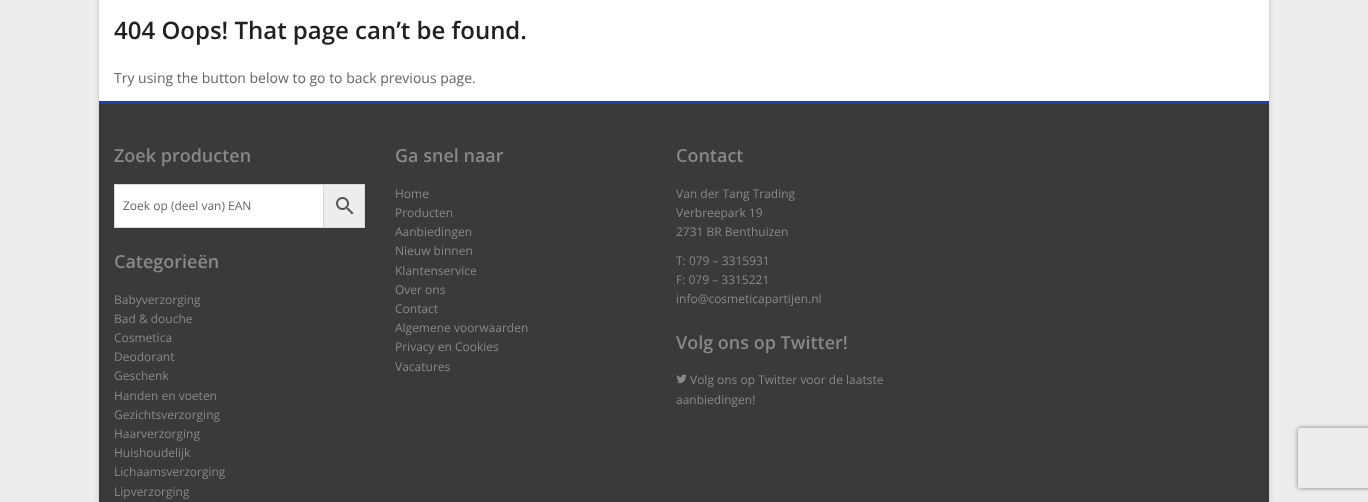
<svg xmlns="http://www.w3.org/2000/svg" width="1368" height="502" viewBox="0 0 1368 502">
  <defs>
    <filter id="blur1" x="-50%" y="-200%" width="200%" height="500%"><feGaussianBlur stdDeviation="2.5"/></filter>
    <clipPath id="clip1"><path d="M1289 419H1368V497H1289ZM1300 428H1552C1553 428 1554 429 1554 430V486C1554 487 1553 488 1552 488H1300C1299 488 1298 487 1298 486V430C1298 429 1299 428 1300 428Z" clip-rule="evenodd"/></clipPath>
  </defs>
  <rect width="100%" height="100%" fill="#ededed"/>
  <rect x="99" y="-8" width="1170" height="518" fill="#000000" fill-opacity="0.2" filter="url(#blur1)"/>
  <rect x="99" y="0" width="1170" height="101" fill="#ffffff"/>
  <text x="114" y="39" font-family="Open Sans" font-size="24" font-weight="600" fill="#212121">404 Oops! That page can’t be found.</text>
  <text x="114" y="83" font-family="Open Sans" font-size="14" fill="#656565">Try using the button below to go to back previous page.</text>
  <rect x="99" y="101" width="1170" height="3" fill="#28428d"/>
  <rect x="99" y="104" width="1170" height="398" fill="#3a3a3a"/>
  <text x="114" y="162" font-family="Open Sans" font-size="18" font-weight="600" fill="#888888">Zoek producten</text>
  <rect x="323.5" y="184.5" width="41" height="43" fill="#ededed" stroke="#d8d8d8"/>
  <rect x="114.5" y="184.5" width="209" height="43" fill="#ffffff" stroke="#d8d8d8"/>
  <text x="123" y="210" font-family="Open Sans" font-size="12" fill="#656565">Zoek op (deel van) EAN</text>
  <image x="336" y="197" width="18" height="18" href="img1.png"/>
  <text x="114" y="268" font-family="Open Sans" font-size="18" font-weight="600" fill="#888888">Categorieën</text>
  <text x="114" y="304" font-family="Open Sans" font-size="12" fill="#888888">Babyverzorging</text>
  <text x="114" y="323" font-family="Open Sans" font-size="12" fill="#888888">Bad &amp; douche</text>
  <text x="114" y="342" font-family="Open Sans" font-size="12" fill="#888888">Cosmetica</text>
  <text x="114" y="361" font-family="Open Sans" font-size="12" fill="#888888">Deodorant</text>
  <text x="114" y="380" font-family="Open Sans" font-size="12" fill="#888888">Geschenk</text>
  <text x="114" y="400" font-family="Open Sans" font-size="12" fill="#888888">Handen en voeten</text>
  <text x="114" y="419" font-family="Open Sans" font-size="12" fill="#888888">Gezichtsverzorging</text>
  <text x="114" y="438" font-family="Open Sans" font-size="12" fill="#888888">Haarverzorging</text>
  <text x="114" y="457" font-family="Open Sans" font-size="12" fill="#888888">Huishoudelijk</text>
  <text x="114" y="476" font-family="Open Sans" font-size="12" fill="#888888">Lichaamsverzorging</text>
  <text x="114" y="496" font-family="Open Sans" font-size="12" fill="#888888">Lipverzorging</text>
  <text x="395" y="162" font-family="Open Sans" font-size="18" font-weight="600" fill="#888888">Ga snel naar</text>
  <text x="395" y="198" font-family="Open Sans" font-size="12" fill="#888888">Home</text>
  <text x="395" y="217" font-family="Open Sans" font-size="12" fill="#888888">Producten</text>
  <text x="395" y="236" font-family="Open Sans" font-size="12" fill="#888888">Aanbiedingen</text>
  <text x="395" y="255" font-family="Open Sans" font-size="12" fill="#888888">Nieuw binnen</text>
  <text x="395" y="275" font-family="Open Sans" font-size="12" fill="#888888">Klantenservice</text>
  <text x="395" y="294" font-family="Open Sans" font-size="12" fill="#888888">Over ons</text>
  <text x="395" y="313" font-family="Open Sans" font-size="12" fill="#888888">Contact</text>
  <text x="395" y="332" font-family="Open Sans" font-size="12" fill="#888888">Algemene voorwaarden</text>
  <text x="395" y="351" font-family="Open Sans" font-size="12" fill="#888888">Privacy en Cookies</text>
  <text x="395" y="371" font-family="Open Sans" font-size="12" fill="#888888">Vacatures</text>
  <text x="676" y="162" font-family="Open Sans" font-size="18" font-weight="600" fill="#888888">Contact</text>
  <text x="676" y="198" font-family="Open Sans" font-size="12" fill="#888888">Van der Tang Trading</text>
  <text x="676" y="217" font-family="Open Sans" font-size="12" fill="#888888">Verbreepark 19</text>
  <text x="676" y="236" font-family="Open Sans" font-size="12" fill="#888888">2731 BR Benthuizen</text>
  <text x="676" y="265" font-family="Open Sans" font-size="12" fill="#888888">T: 079 – 3315931</text>
  <text x="676" y="284" font-family="Open Sans" font-size="12" fill="#888888">F: 079 – 3315221</text>
  <text x="676" y="303" font-family="Open Sans" font-size="12" fill="#888888">info@cosmeticapartijen.nl</text>
  <text x="676" y="349" font-family="Open Sans" font-size="18" font-weight="600" fill="#888888">Volg ons op Twitter!</text>
  <image x="676" y="374" width="11" height="10" href="img2.png"/>
  <text x="690" y="384" font-family="Open Sans" font-size="12" fill="#888888">Volg ons op Twitter voor de laatste</text>
  <text x="676" y="404" font-family="Open Sans" font-size="12" fill="#888888">aanbiedingen!</text>
  <g clip-path="url(#clip1)">
    <rect x="1298" y="428" width="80" height="60" rx="2" fill="#808080" filter="url(#blur1)"/>
  </g>
</svg>
